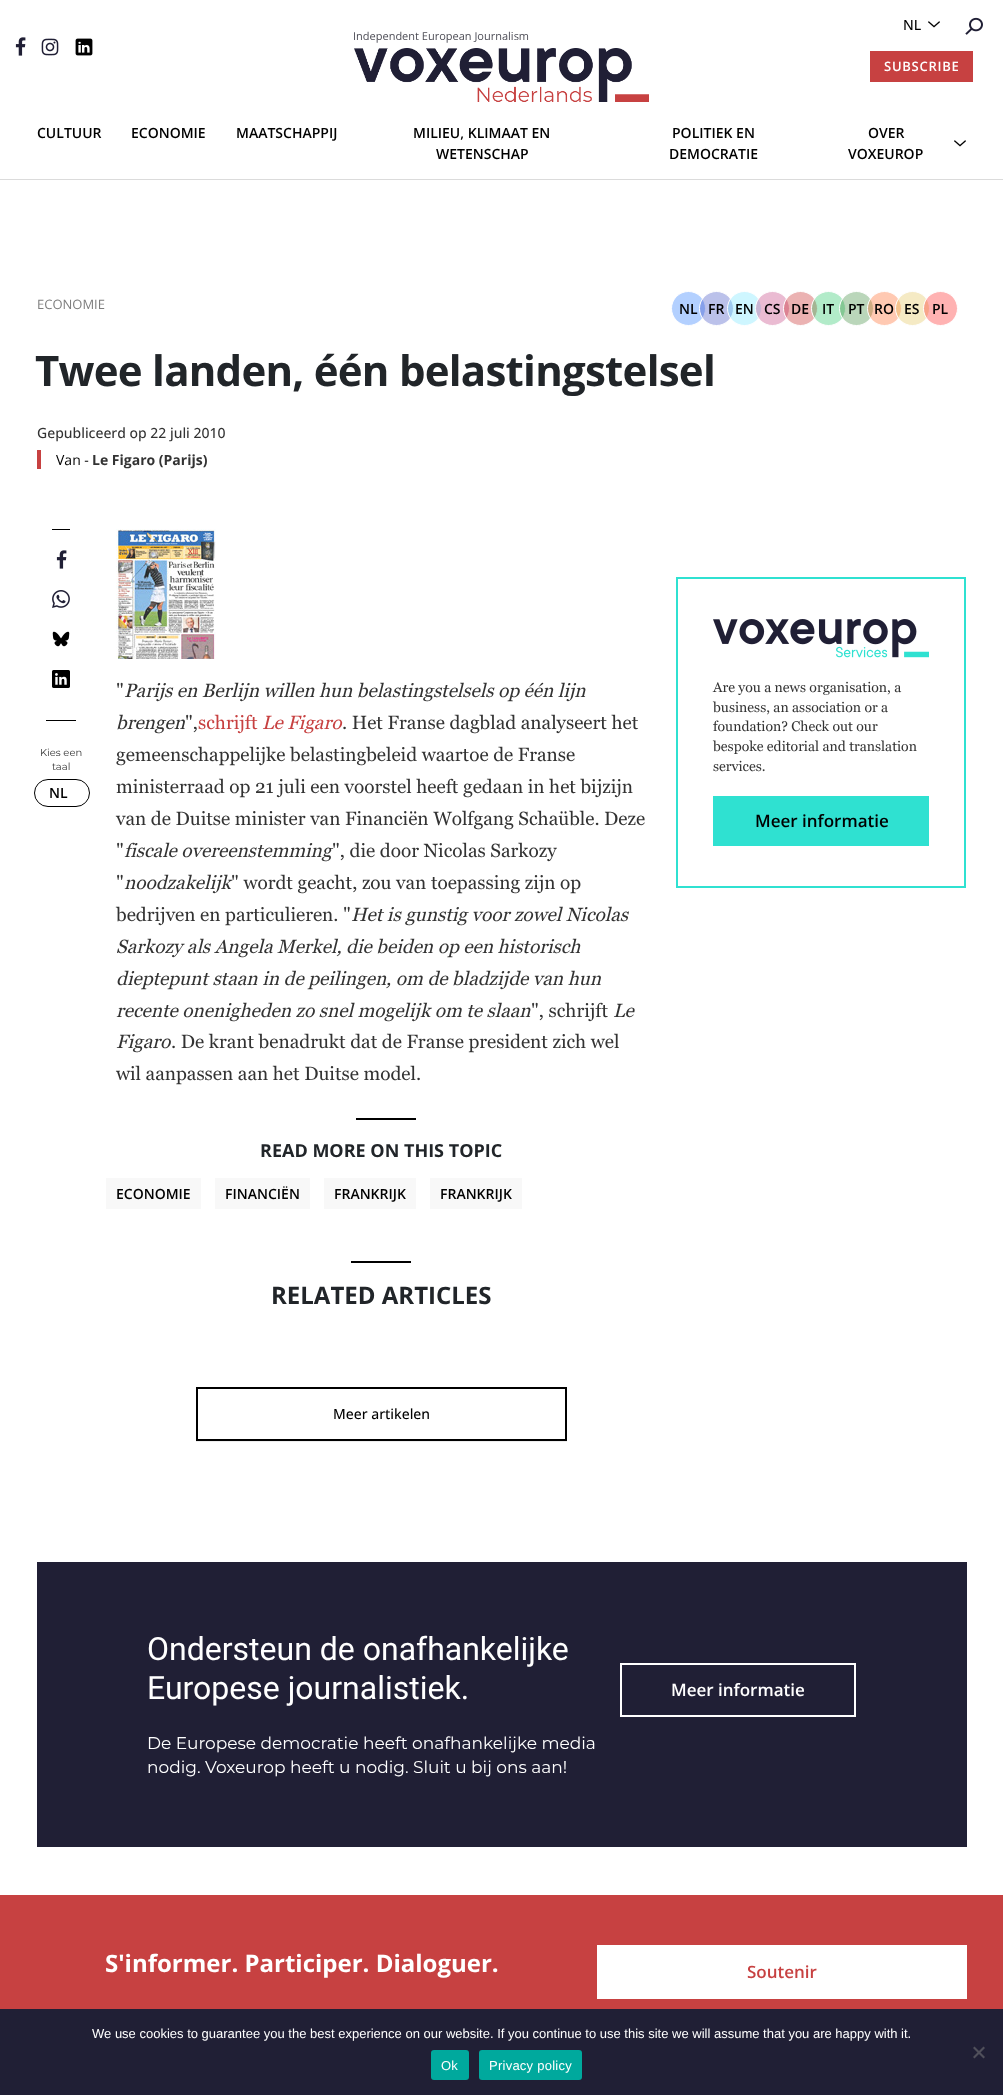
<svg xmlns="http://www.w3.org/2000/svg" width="1003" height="2095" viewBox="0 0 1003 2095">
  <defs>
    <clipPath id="clip1"><rect x="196" y="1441" width="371" height="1"/></clipPath>
    <filter id="blur1" x="-50%" y="-200%" width="200%" height="500%"><feGaussianBlur stdDeviation="0.5"/></filter>
  </defs>
  <rect width="100%" height="100%" fill="#ffffff"/>
  <image x="928" y="21" width="12" height="7" href="img1.png"/>
  <text x="903" y="30" font-family="Open Sans" font-size="14" font-weight="500" fill="#000000">NL</text>
  <image x="965" y="17" width="18" height="18" href="img2.png"/>
  <image x="15" y="37" width="11" height="19" href="img3.png"/>
  <image x="41" y="38" width="18" height="18" href="img4.png"/>
  <image x="75" y="38" width="18" height="18" href="img5.png"/>
  <text x="353" y="40" font-family="Open Sans" font-size="11" fill="#4e4e57">Independent European Journalism</text>
  <image x="354" y="48" width="295" height="54" href="img6.png"/>
  <rect x="870" y="51" width="103" height="31" fill="#c74141"/>
  <text x="884" y="71" font-family="Open Sans" font-size="13" font-weight="600" letter-spacing="0.75" fill="#ffffff">SUBSCRIBE</text>
  <rect x="0" y="179" width="1003" height="1" fill="#dbdbdb"/>
  <text x="37" y="138" font-family="Open Sans" font-size="14" font-weight="600" fill="#000000">CULTUUR</text>
  <text x="131" y="138" font-family="Open Sans" font-size="14" font-weight="600" fill="#000000">ECONOMIE</text>
  <text x="236" y="138" font-family="Open Sans" font-size="14" font-weight="600" fill="#000000">MAATSCHAPPIJ</text>
  <text x="413" y="138" font-family="Open Sans" font-size="14" font-weight="600" fill="#000000">MILIEU, KLIMAAT EN</text>
  <text x="436" y="159" font-family="Open Sans" font-size="14" font-weight="600" fill="#000000">WETENSCHAP</text>
  <text x="672" y="138" font-family="Open Sans" font-size="14" font-weight="600" fill="#000000">POLITIEK EN</text>
  <text x="669" y="159" font-family="Open Sans" font-size="14" font-weight="600" fill="#000000">DEMOCRATIE</text>
  <text x="868" y="138" font-family="Open Sans" font-size="14" font-weight="600" fill="#000000">OVER</text>
  <image x="954" y="140" width="12" height="7" href="img1.png"/>
  <text x="848" y="159" font-family="Open Sans" font-size="14" font-weight="600" fill="#000000">VOXEUROP</text>
  <text x="37" y="309" font-family="Open Sans" font-size="13" fill="#7d7d7d">ECONOMIE</text>
  <circle cx="688.5" cy="308.5" r="17" fill="#b3d0ff" stroke="#ffffff"/>
  <text x="679" y="314" font-family="Open Sans" font-size="14" font-weight="600" fill="#000000">NL</text>
  <circle cx="716.5" cy="308.5" r="17" fill="#1e32bb" fill-opacity="0.3" stroke="#ffffff"/>
  <text x="708" y="314" font-family="Open Sans" font-size="14" font-weight="600" fill="#000000">FR</text>
  <circle cx="744.5" cy="308.5" r="17" fill="#5ee2ff" fill-opacity="0.3" stroke="#ffffff"/>
  <text x="735" y="314" font-family="Open Sans" font-size="14" font-weight="600" fill="#000000">EN</text>
  <circle cx="772.5" cy="308.5" r="17" fill="#bb1e6a" fill-opacity="0.3" stroke="#ffffff"/>
  <text x="764" y="314" font-family="Open Sans" font-size="14" font-weight="600" fill="#000000">CS</text>
  <circle cx="800.5" cy="308.5" r="17" fill="#be0000" fill-opacity="0.3" stroke="#ffffff"/>
  <text x="791" y="314" font-family="Open Sans" font-size="14" font-weight="600" fill="#000000">DE</text>
  <circle cx="828.5" cy="308.5" r="17" fill="#00be4c" fill-opacity="0.3" stroke="#ffffff"/>
  <text x="822" y="314" font-family="Open Sans" font-size="14" font-weight="600" fill="#000000">IT</text>
  <circle cx="856.5" cy="308.5" r="17" fill="#1c761c" fill-opacity="0.3" stroke="#ffffff"/>
  <text x="848" y="314" font-family="Open Sans" font-size="14" font-weight="600" fill="#000000">PT</text>
  <circle cx="884.5" cy="308.5" r="17" fill="#ff4c00" fill-opacity="0.3" stroke="#ffffff"/>
  <text x="874" y="314" font-family="Open Sans" font-size="14" font-weight="600" fill="#000000">RO</text>
  <circle cx="912.5" cy="308.5" r="17" fill="#dfba3a" fill-opacity="0.3" stroke="#ffffff"/>
  <text x="904" y="314" font-family="Open Sans" font-size="14" font-weight="600" fill="#000000">ES</text>
  <circle cx="940.5" cy="308.5" r="17" fill="#ff0000" fill-opacity="0.3" stroke="#ffffff"/>
  <text x="932" y="314" font-family="Open Sans" font-size="14" font-weight="600" fill="#000000">PL</text>
  <text x="35" y="386" font-family="Open Sans" font-size="42" font-weight="bold" letter-spacing="-0.75" fill="#212529">Twee landen, één belastingstelsel</text>
  <text x="37" y="438" font-family="Open Sans" font-size="14" font-weight="500" fill="#333333">Gepubliceerd op 22 juli 2010</text>
  <rect x="37" y="450" width="4" height="19" fill="#c74141"/>
  <text x="56" y="465" font-family="Open Sans" font-size="14" fill="#000000">Van -</text>
  <text x="92" y="465" font-family="Open Sans" font-size="14" font-weight="bold" fill="#333333">Le Figaro (Parijs)</text>
  <rect x="52" y="529" width="18" height="1" fill="#000000"/>
  <image x="56" y="550" width="11" height="19" href="img7.png"/>
  <image x="52" y="590" width="18" height="18" href="img8.png"/>
  <image x="52" y="631" width="18" height="16" href="img9.png"/>
  <image x="52" y="670" width="18" height="18" href="img10.png"/>
  <rect x="46" y="720" width="30" height="1" fill="#000000"/>
  <text x="40" y="756" font-family="Montserrat" font-size="10" fill="#333333">Kies een</text>
  <text x="52" y="770" font-family="Montserrat" font-size="10" fill="#333333">taal</text>
  <rect x="34.5" y="779.5" width="55" height="27" rx="13.5" fill="none" stroke="#000000"/>
  <text x="49" y="798" font-family="Open Sans" font-size="14" font-weight="600" fill="#000000">NL</text>
  <image x="116" y="529" width="100" height="130" href="img11.png"/>
  <text x="116" y="697" font-family="Georgia" font-size="19" fill="#333333">"</text>
  <text x="124" y="697" font-family="Georgia" font-size="19" font-style="italic" fill="#333333">Parijs en Berlijn willen hun belastingstelsels op één lijn</text>
  <text x="116" y="729" font-family="Georgia" font-size="19" font-style="italic" fill="#333333">brengen</text>
  <text x="185" y="729" font-family="Georgia" font-size="19" fill="#333333">",</text>
  <text x="198" y="729" font-family="Georgia" font-size="19" fill="#c74141">schrijft</text>
  <text x="262" y="729" font-family="Georgia" font-size="19" font-style="italic" fill="#c74141">Le Figaro</text>
  <text x="342" y="729" font-family="Georgia" font-size="19" fill="#333333">. Het Franse dagblad analyseert het</text>
  <text x="116" y="761" font-family="Georgia" font-size="19" fill="#333333">gemeenschappelijke belastingbeleid waartoe de Franse</text>
  <text x="116" y="793" font-family="Georgia" font-size="19" fill="#333333">ministerraad op 21 juli een voorstel heeft gedaan in het bijzijn</text>
  <text x="116" y="825" font-family="Georgia" font-size="19" fill="#333333">van de Duitse minister van Financiën Wolfgang Schaüble. Deze</text>
  <text x="116" y="857" font-family="Georgia" font-size="19" fill="#333333">"</text>
  <text x="124" y="857" font-family="Georgia" font-size="19" font-style="italic" fill="#333333">fiscale overeenstemming</text>
  <text x="332" y="857" font-family="Georgia" font-size="19" fill="#333333">", die door Nicolas Sarkozy</text>
  <text x="116" y="889" font-family="Georgia" font-size="19" fill="#333333">"</text>
  <text x="124" y="889" font-family="Georgia" font-size="19" font-style="italic" fill="#333333">noodzakelijk</text>
  <text x="231" y="889" font-family="Georgia" font-size="19" fill="#333333">" wordt geacht, zou van toepassing zijn op</text>
  <text x="116" y="921" font-family="Georgia" font-size="19" fill="#333333">bedrijven en particulieren. "</text>
  <text x="351" y="921" font-family="Georgia" font-size="19" font-style="italic" fill="#333333">Het is gunstig voor zowel Nicolas</text>
  <text x="116" y="953" font-family="Georgia" font-size="19" font-style="italic" fill="#333333">Sarkozy als Angela Merkel, die beiden op een historisch</text>
  <text x="116" y="985" font-family="Georgia" font-size="19" font-style="italic" fill="#333333">dieptepunt staan in de peilingen, om de bladzijde van hun</text>
  <text x="116" y="1017" font-family="Georgia" font-size="19" font-style="italic" fill="#333333">recente onenigheden zo snel mogelijk om te slaan</text>
  <text x="531" y="1017" font-family="Georgia" font-size="19" fill="#333333">", schrijft</text>
  <text x="613" y="1017" font-family="Georgia" font-size="19" font-style="italic" fill="#333333">Le</text>
  <text x="116" y="1048" font-family="Georgia" font-size="19" font-style="italic" fill="#333333">Figaro</text>
  <text x="171" y="1048" font-family="Georgia" font-size="19" fill="#333333">. De krant benadrukt dat de Franse president zich wel</text>
  <text x="116" y="1080" font-family="Georgia" font-size="19" fill="#333333">wil aanpassen aan het Duitse model.</text>
  <rect x="356" y="1118" width="60" height="2" fill="#000000"/>
  <text x="260" y="1157" font-family="Open Sans" font-size="18" font-weight="bold" fill="#212529">READ MORE ON THIS TOPIC</text>
  <rect x="116" y="1178" width="85" height="31" fill="#f8f8f8"/>
  <text x="116" y="1199" font-family="Open Sans" font-size="14" font-weight="600" fill="#000000">ECONOMIE</text>
  <rect x="106" y="1178" width="10" height="31" fill="#f8f8f8"/>
  <rect x="225" y="1178" width="85" height="31" fill="#f8f8f8"/>
  <text x="225" y="1199" font-family="Open Sans" font-size="14" font-weight="600" fill="#000000">FINANCIËN</text>
  <rect x="215" y="1178" width="10" height="31" fill="#f8f8f8"/>
  <rect x="334" y="1178" width="82" height="31" fill="#f8f8f8"/>
  <text x="334" y="1199" font-family="Open Sans" font-size="14" font-weight="600" fill="#000000">FRANKRIJK</text>
  <rect x="324" y="1178" width="10" height="31" fill="#f8f8f8"/>
  <rect x="440" y="1178" width="82" height="31" fill="#f8f8f8"/>
  <text x="440" y="1199" font-family="Open Sans" font-size="14" font-weight="600" fill="#000000">FRANKRIJK</text>
  <rect x="430" y="1178" width="10" height="31" fill="#f8f8f8"/>
  <rect x="351" y="1261" width="60" height="2" fill="#000000"/>
  <text x="271" y="1304" font-family="Open Sans" font-size="24" font-weight="bold" fill="#212529">RELATED ARTICLES</text>
  <g clip-path="url(#clip1)">
    <rect x="196" y="1388" width="371" height="54" fill="#000000" fill-opacity="0.07" filter="url(#blur1)"/>
  </g>
  <rect x="197" y="1388" width="369" height="52" fill="none" stroke="#000000" stroke-width="2"/>
  <text x="333" y="1419" font-family="Open Sans" font-size="14" font-weight="500" fill="#000000">Meer artikelen</text>
  <rect x="677" y="578" width="288" height="309" fill="none" stroke="#2fe1d1" stroke-width="2"/>
  <image x="713" y="619" width="216" height="39" href="img12.png"/>
  <text x="713" y="692" font-family="Georgia" font-size="14" fill="#333333">Are you a news organisation, a</text>
  <text x="713" y="712" font-family="Georgia" font-size="14" fill="#333333">business, an association or a</text>
  <text x="713" y="731" font-family="Georgia" font-size="14" fill="#333333">foundation? Check out our</text>
  <text x="713" y="751" font-family="Georgia" font-size="14" fill="#333333">bespoke editorial and translation</text>
  <text x="713" y="771" font-family="Georgia" font-size="14" fill="#333333">services.</text>
  <rect x="713" y="796" width="216" height="50" fill="#2fe1d1"/>
  <text x="755" y="827" font-family="Open Sans" font-size="17" font-weight="600" fill="#000000">Meer informatie</text>
  <rect x="37" y="1562" width="930" height="285" fill="#201f35"/>
  <text x="147" y="1660" font-family="Roboto" font-size="32" fill="#ffffff">Ondersteun de onafhankelijke</text>
  <text x="147" y="1699" font-family="Roboto" font-size="32" fill="#ffffff">Europese journalistiek.</text>
  <text x="147" y="1749" font-family="Montserrat" font-size="17" fill="#ffffff">De Europese democratie heeft onafhankelijke media</text>
  <text x="147" y="1773" font-family="Montserrat" font-size="17" fill="#ffffff">nodig. Voxeurop heeft u nodig. Sluit u bij ons aan!</text>
  <rect x="621" y="1664" width="234" height="52" fill="none" stroke="#ffffff" stroke-width="2"/>
  <text x="671" y="1696" font-family="Open Sans" font-size="17" font-weight="600" fill="#ffffff">Meer informatie</text>
  <rect x="0" y="1895" width="1003" height="114" fill="#c74141"/>
  <text x="105" y="1972" font-family="Open Sans" font-size="24" font-weight="bold" fill="#ffffff">S'informer. Participer. Dialoguer.</text>
  <rect x="597" y="1945" width="370" height="54" fill="#ffffff"/>
  <text x="747" y="1978" font-family="Open Sans" font-size="17" font-weight="600" fill="#c74141">Soutenir</text>
  <rect x="0" y="2009" width="1003" height="86" fill="#201f35"/>
  <text x="92" y="2038" font-family="Liberation Sans" font-size="13" fill="#ffffff">We use cookies to guarantee you the best experience on our website. If you continue to use this site we will assume that you are happy with it.</text>
  <path d="M983.5 2046.5L985 2048L974.5 2058.5L973 2057Z" fill="#50505b"/>
  <path d="M973 2048L974.5 2046.5L985 2057L983.5 2058.5Z" fill="#50505b"/>
  <rect x="431" y="2050" width="38" height="30" rx="3" fill="#00a99d"/>
  <text x="441" y="2070" font-family="Liberation Sans" font-size="13" letter-spacing="0.25" fill="#ffffff">Ok</text>
  <rect x="479" y="2050" width="103" height="30" rx="3" fill="#00a99d"/>
  <text x="489" y="2070" font-family="Liberation Sans" font-size="13" letter-spacing="0.25" fill="#ffffff">Privacy policy</text>
</svg>
